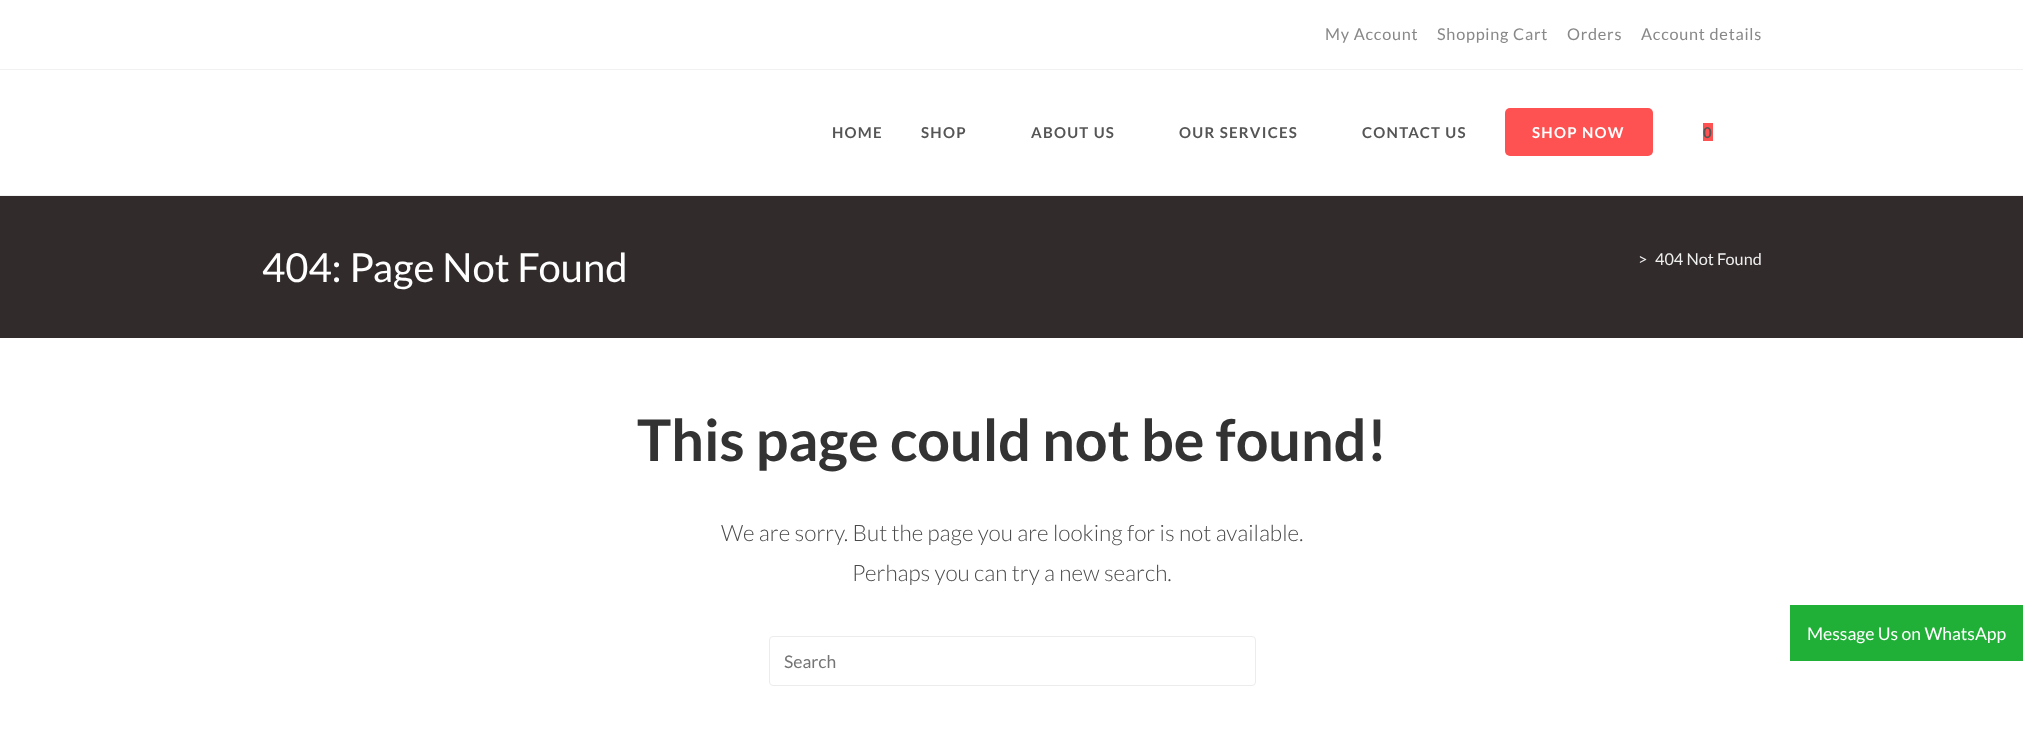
<svg xmlns="http://www.w3.org/2000/svg" width="2023" height="734" viewBox="0 0 2023 734">
  <rect width="100%" height="100%" fill="#ffffff"/>
  <rect x="0" y="69" width="2023" height="1" fill="#f1f1f1"/>
  <text x="1325" y="40" font-family="Lato" font-size="16.25" letter-spacing="0.75" fill="#888888">My Account</text>
  <text x="1437" y="40" font-family="Lato" font-size="16.25" letter-spacing="0.75" fill="#888888">Shopping Cart</text>
  <text x="1567" y="40" font-family="Lato" font-size="16.25" letter-spacing="0.75" fill="#888888">Orders</text>
  <text x="1641" y="40" font-family="Lato" font-size="16.25" letter-spacing="0.75" fill="#888888">Account details</text>
  <rect x="0" y="195" width="2023" height="1" fill="#f1f1f1"/>
  <text x="832" y="138" font-family="Lato" font-size="15" font-weight="bold" letter-spacing="1.25" fill="#555555">HOME</text>
  <text x="921" y="138" font-family="Lato" font-size="15" font-weight="bold" letter-spacing="1.25" fill="#555555">SHOP</text>
  <text x="1031" y="138" font-family="Lato" font-size="15" font-weight="bold" letter-spacing="1.25" fill="#555555">ABOUT US</text>
  <text x="1179" y="138" font-family="Lato" font-size="15" font-weight="bold" letter-spacing="1.25" fill="#555555">OUR SERVICES</text>
  <text x="1362" y="138" font-family="Lato" font-size="15" font-weight="bold" letter-spacing="1.25" fill="#555555">CONTACT US</text>
  <rect x="1505" y="108" width="148" height="48" rx="5" fill="#fe5252"/>
  <text x="1532" y="138" font-family="Lato" font-size="15" font-weight="bold" letter-spacing="1.25" fill="#ffffff">SHOP NOW</text>
  <rect x="1703" y="123" width="10" height="18" fill="#fe5252"/>
  <text x="1703" y="138" font-family="Lato" font-size="15" font-weight="bold" letter-spacing="1.25" fill="#555555">0</text>
  <rect x="0" y="196" width="2023" height="142" fill="#322b2b"/>
  <text x="262" y="282" font-family="Lato" font-size="40" fill="#ffffff">404: Page Not Found</text>
  <text x="1638" y="265" font-family="Lato" font-size="16.25" fill="#efefef">&gt;</text>
  <text x="1655" y="265" font-family="Lato" font-size="16.25" fill="#efefef">404 Not Found</text>
  <text x="637" y="461" font-family="Lato" font-size="57.5" font-weight="bold" fill="#333333">This page could not be found!</text>
  <text x="721" y="541" font-family="Lato" font-size="22.5" font-weight="300" fill="#4a4a4a">We are sorry. But the page you are looking for is not available.</text>
  <text x="852" y="581" font-family="Lato" font-size="22.5" font-weight="300" fill="#4a4a4a">Perhaps you can try a new search.</text>
  <rect x="769.5" y="636.5" width="486" height="49" rx="3.5" fill="none" stroke="#ececec"/>
  <text x="784" y="668" font-family="Lato" font-size="17.5" fill="#757575">Search</text>
  <rect x="1790" y="605" width="233" height="56" fill="#20b038"/>
  <text x="1807" y="640" font-family="Lato" font-size="17.5" fill="#ffffff">Message Us on WhatsApp</text>
</svg>
